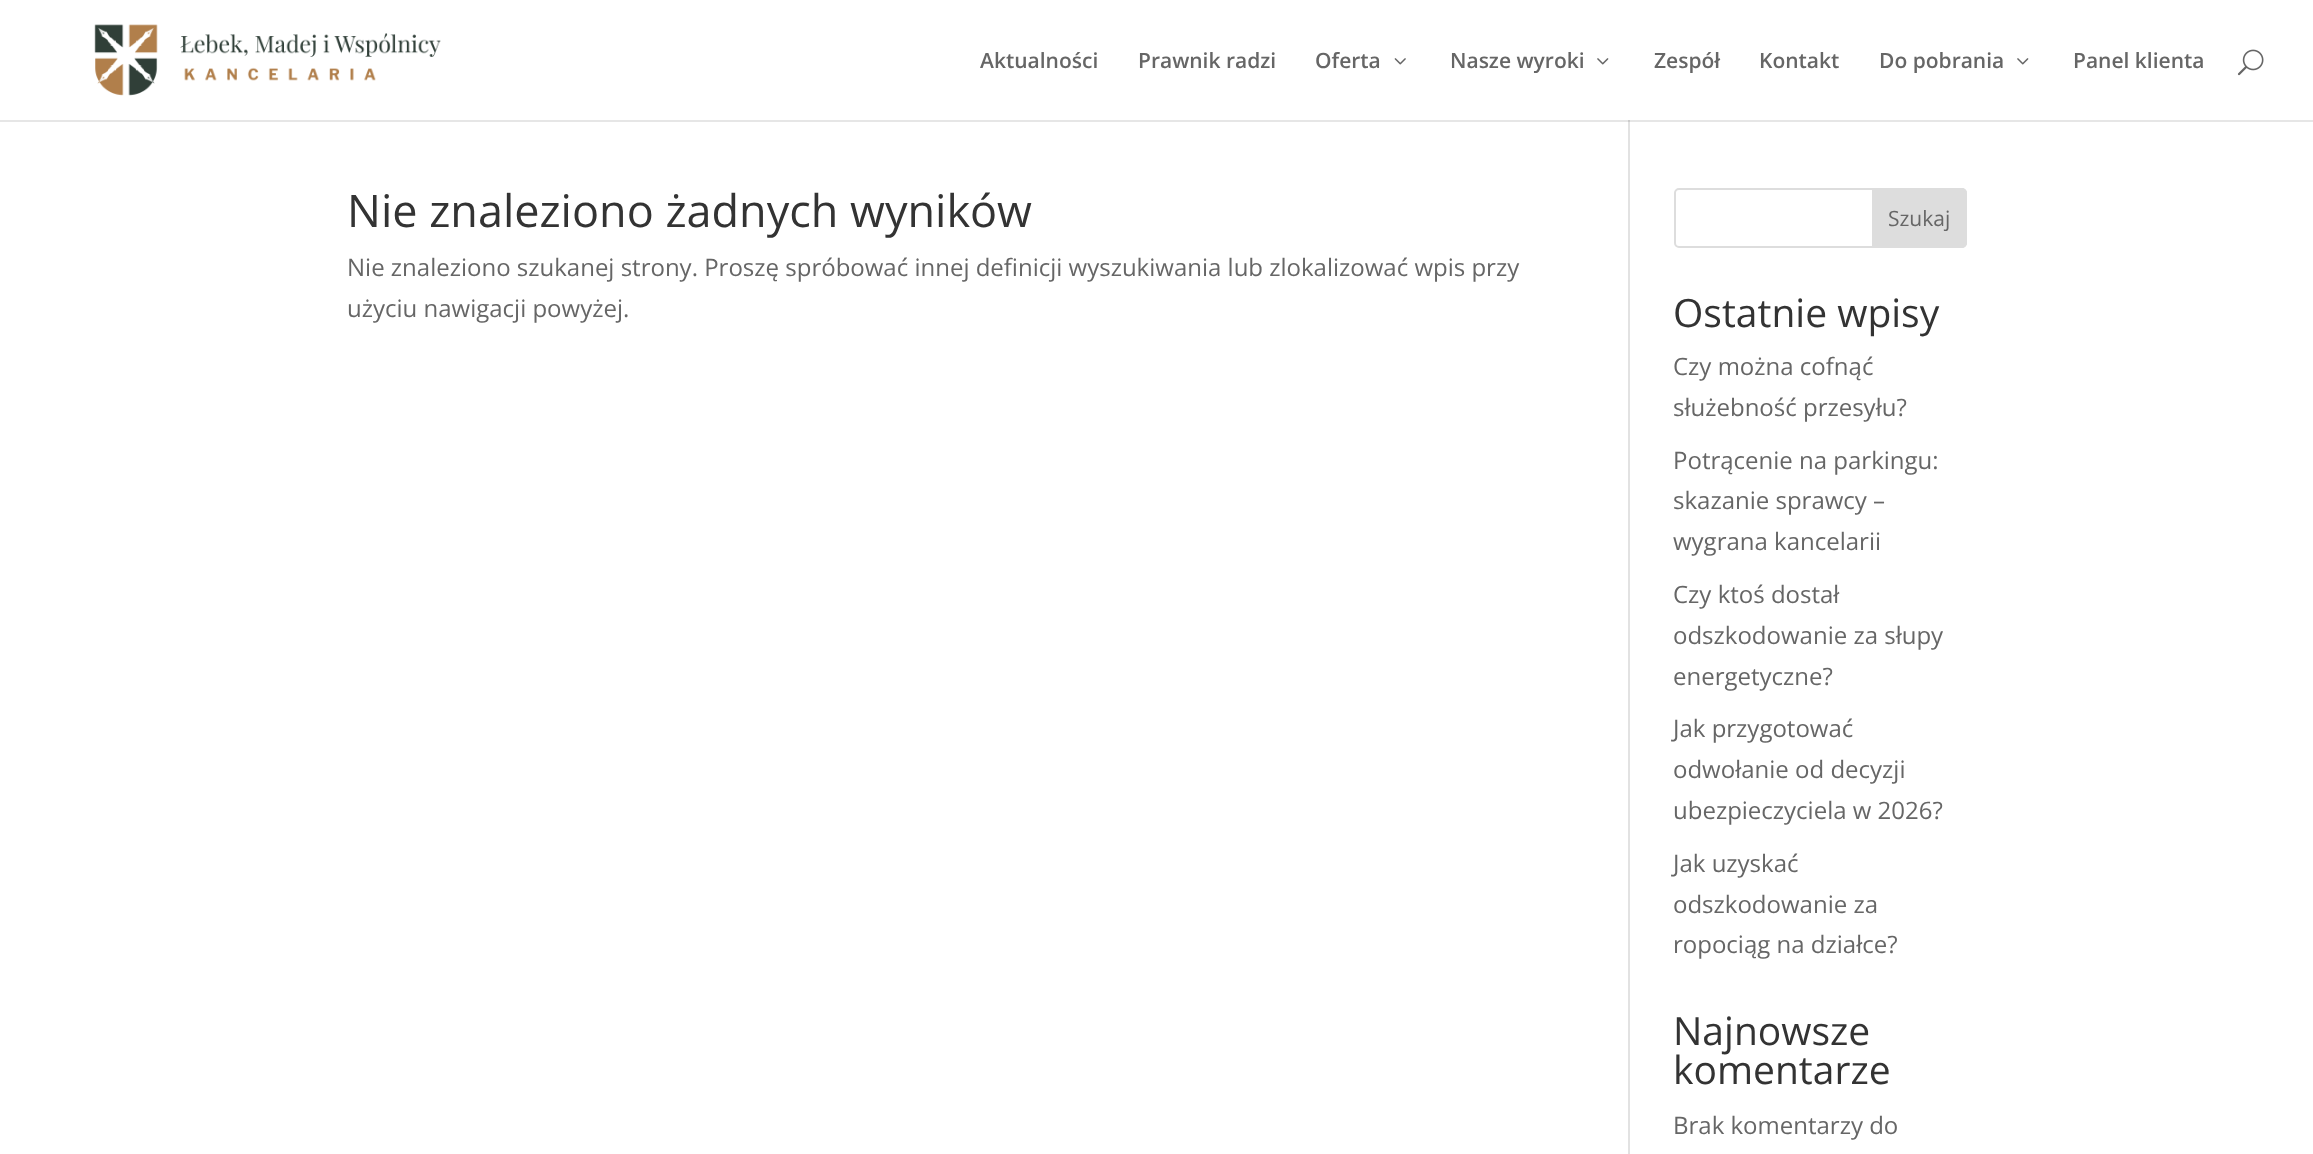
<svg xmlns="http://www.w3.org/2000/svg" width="2313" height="1154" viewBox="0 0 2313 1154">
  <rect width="100%" height="100%" fill="#ffffff"/>
  <rect x="0" y="120" width="2313" height="2" fill="#e6e6e6"/>
  <image x="94" y="24" width="347" height="72" href="img1.png"/>
  <text x="980" y="68" font-family="Open Sans" font-size="21" font-weight="600" fill="#666666">Aktualności</text>
  <text x="1138" y="68" font-family="Open Sans" font-size="21" font-weight="600" fill="#666666">Prawnik radzi</text>
  <text x="1315" y="68" font-family="Open Sans" font-size="21" font-weight="600" fill="#666666">Oferta</text>
  <image x="1394" y="58" width="12" height="7" href="img2.png"/>
  <text x="1450" y="68" font-family="Open Sans" font-size="21" font-weight="600" fill="#666666">Nasze wyroki</text>
  <image x="1597" y="58" width="12" height="7" href="img3.png"/>
  <text x="1654" y="68" font-family="Open Sans" font-size="21" font-weight="600" fill="#666666">Zespół</text>
  <text x="1759" y="68" font-family="Open Sans" font-size="21" font-weight="600" fill="#666666">Kontakt</text>
  <text x="1879" y="68" font-family="Open Sans" font-size="21" font-weight="600" fill="#666666">Do pobrania</text>
  <image x="2017" y="58" width="12" height="7" href="img3.png"/>
  <text x="2073" y="68" font-family="Open Sans" font-size="21" font-weight="600" fill="#666666">Panel klienta</text>
  <image x="2237" y="49" width="27" height="27" href="img4.png"/>
  <rect x="1628" y="122" width="2" height="1032" fill="#e2e2e2"/>
  <rect x="1628" y="120" width="2" height="2" fill="#cbcbcb"/>
  <text x="347" y="227" font-family="Open Sans" font-size="45" fill="#333333">Nie znaleziono żadnych wyników</text>
  <text x="347" y="276" font-family="Open Sans" font-size="24" fill="#666666">Nie znaleziono szukanej strony. Proszę spróbować innej definicji wyszukiwania lub zlokalizować wpis przy</text>
  <text x="347" y="317" font-family="Open Sans" font-size="24" fill="#666666">użyciu nawigacji powyżej.</text>
  <rect x="1675" y="189" width="291" height="58" rx="4" fill="none" stroke="#dddddd" stroke-width="2"/>
  <path d="M1873 189H1962C1964 189 1966 191 1966 193V243C1966 245 1964 247 1962 247H1873Z" fill="#dddddd" stroke="#dddddd" stroke-width="2"/>
  <text x="1888" y="226" font-family="Open Sans" font-size="21" fill="#666666">Szukaj</text>
  <text x="1673" y="327" font-family="Open Sans" font-size="39" fill="#333333">Ostatnie wpisy</text>
  <text x="1673" y="375" font-family="Open Sans" font-size="24" fill="#666666">Czy można cofnąć</text>
  <text x="1673" y="416" font-family="Open Sans" font-size="24" fill="#666666">służebność przesyłu?</text>
  <text x="1673" y="469" font-family="Open Sans" font-size="24" fill="#666666">Potrącenie na parkingu:</text>
  <text x="1673" y="509" font-family="Open Sans" font-size="24" fill="#666666">skazanie sprawcy –</text>
  <text x="1673" y="550" font-family="Open Sans" font-size="24" fill="#666666">wygrana kancelarii</text>
  <text x="1673" y="603" font-family="Open Sans" font-size="24" fill="#666666">Czy ktoś dostał</text>
  <text x="1673" y="644" font-family="Open Sans" font-size="24" fill="#666666">odszkodowanie za słupy</text>
  <text x="1673" y="685" font-family="Open Sans" font-size="24" fill="#666666">energetyczne?</text>
  <text x="1673" y="737" font-family="Open Sans" font-size="24" fill="#666666">Jak przygotować</text>
  <text x="1673" y="778" font-family="Open Sans" font-size="24" fill="#666666">odwołanie od decyzji</text>
  <text x="1673" y="819" font-family="Open Sans" font-size="24" fill="#666666">ubezpieczyciela w 2026?</text>
  <text x="1673" y="872" font-family="Open Sans" font-size="24" fill="#666666">Jak uzyskać</text>
  <text x="1673" y="913" font-family="Open Sans" font-size="24" fill="#666666">odszkodowanie za</text>
  <text x="1673" y="953" font-family="Open Sans" font-size="24" fill="#666666">ropociąg na działce?</text>
  <text x="1673" y="1045" font-family="Open Sans" font-size="39" fill="#333333">Najnowsze</text>
  <text x="1673" y="1084" font-family="Open Sans" font-size="39" fill="#333333">komentarze</text>
  <text x="1673" y="1134" font-family="Open Sans" font-size="24" fill="#666666">Brak komentarzy do</text>
</svg>
